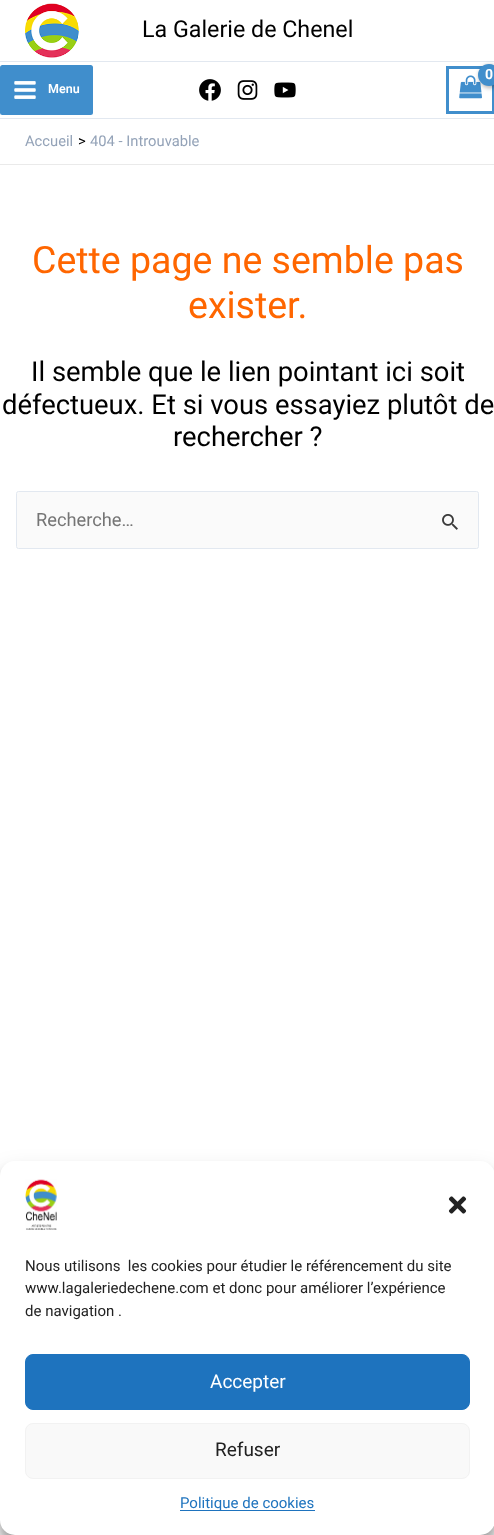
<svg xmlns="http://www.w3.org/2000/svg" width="494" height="1535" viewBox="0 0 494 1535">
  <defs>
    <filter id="blur1" x="-50%" y="-200%" width="200%" height="500%"><feGaussianBlur stdDeviation="2"/></filter>
    <filter id="blur2" x="-50%" y="-200%" width="200%" height="500%"><feGaussianBlur stdDeviation="4"/></filter>
    <filter id="blur3" x="-50%" y="-200%" width="200%" height="500%"><feGaussianBlur stdDeviation="12.5"/></filter>
  </defs>
  <rect width="100%" height="100%" fill="#ffffff"/>
  <rect x="0" y="61" width="494" height="1" fill="#e2e8f0"/>
  <image x="25" y="3" width="54" height="55" href="img1.png"/>
  <text x="142" y="37" font-family="Roboto" font-size="23.25" fill="#000000">La Galerie de Chenel</text>
  <rect x="0" y="118" width="494" height="1" fill="#e2e8f0"/>
  <rect x="447.5" y="67.5" width="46" height="45" fill="none" stroke="#408ecc" stroke-width="3"/>
  <image x="459" y="75" width="23" height="24" href="img2.png"/>
  <rect x="479" y="65" width="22" height="23" rx="11" fill="#000000" fill-opacity="0.3" filter="url(#blur1)"/>
  <circle cx="489" cy="75" r="11" fill="#408ecc"/>
  <text x="485" y="79" font-family="Roboto" font-size="14" font-weight="bold" letter-spacing="-1" fill="#ffffff">0</text>
  <rect x="0" y="65" width="93" height="50" rx="2.5" fill="#408ecc"/>
  <image x="14" y="81" width="22" height="18" href="img3.png"/>
  <text x="48" y="93" font-family="Roboto" font-size="12.5" font-weight="600" fill="#ffffff">Menu</text>
  <image x="199" y="79" width="22" height="22" href="img4.png"/>
  <image x="237" y="80" width="21" height="20" href="img5.png"/>
  <image x="274" y="82" width="22" height="16" href="img6.png"/>
  <rect x="0" y="164" width="494" height="1" fill="#eaeaea"/>
  <text x="25" y="146" font-family="Roboto" font-size="14.75" fill="#94a3b8">Accueil</text>
  <text x="78" y="146" font-family="Roboto" font-size="14.75" fill="#000000">&gt;</text>
  <text x="90" y="146" font-family="Roboto" font-size="14.75" fill="#94a3b8">404 - Introuvable</text>
  <text x="32" y="273" font-family="Roboto" font-size="37.5" fill="#ff6600">Cette page ne semble pas</text>
  <text x="188" y="318" font-family="Roboto" font-size="37.5" fill="#ff6600">exister.</text>
  <text x="31" y="381" font-family="Roboto" font-size="27.4" fill="#000000">Il semble que le lien pointant ici soit</text>
  <text x="2" y="414" font-family="Roboto" font-size="27.4" fill="#000000">défectueux. Et si vous essayiez plutôt de</text>
  <text x="173" y="446" font-family="Roboto" font-size="27.4" fill="#000000">rechercher ?</text>
  <rect x="16.5" y="491.5" width="462" height="57" rx="2" fill="#fafafa" stroke="#e2e8f0"/>
  <text x="36" y="526" font-family="Roboto" font-size="18.25" fill="#757575">Recherche…</text>
  <image x="442" y="514" width="16" height="16" href="img7.png"/>
  <rect x="0" y="1520" width="494" height="15" fill="#f9f9f9"/>
  <rect x="0" y="1169" width="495" height="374" rx="15" fill="#000000" fill-opacity="0.23" filter="url(#blur2)"/>
  <rect x="0" y="1174" width="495" height="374" rx="15" fill="#000000" fill-opacity="0.19" filter="url(#blur3)"/>
  <rect x="0" y="1161" width="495" height="374" rx="15" fill="#ffffff"/>
  <image x="25" y="1179" width="32" height="51" href="img8.png"/>
  <image x="448" y="1196" width="19" height="18" href="img9.png"/>
  <text x="25" y="1271" font-family="Roboto" font-size="15" fill="#222222" xml:space="preserve">Nous utilisons  les cookies pour étudier le référencement du site</text>
  <text x="25" y="1293" font-family="Roboto" font-size="15" fill="#222222">www.lagaleriedechene.com et donc pour améliorer l’expérience</text>
  <text x="25" y="1316" font-family="Roboto" font-size="15" fill="#222222">de navigation .</text>
  <rect x="25.5" y="1354.5" width="444" height="55" rx="7.5" fill="#1e73be" stroke="#1e73be"/>
  <text x="210" y="1388" font-family="Roboto" font-size="19" fill="#ffffff">Accepter</text>
  <rect x="25.5" y="1423.5" width="444" height="55" rx="7.5" fill="#f9f9f9" stroke="#f2f2f2"/>
  <text x="215" y="1456" font-family="Roboto" font-size="19" fill="#222222">Refuser</text>
  <rect x="180" y="1510" width="135" height="1" fill="#1e73be"/>
  <text x="180" y="1508" font-family="Roboto" font-size="15" fill="#1e73be">Politique de cookies</text>
</svg>
